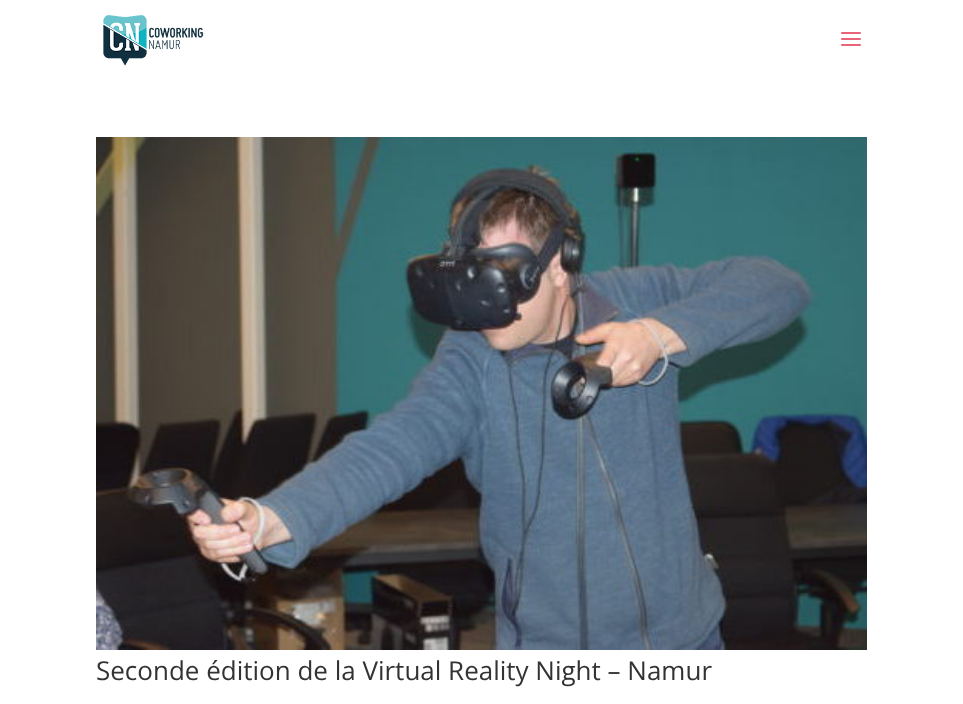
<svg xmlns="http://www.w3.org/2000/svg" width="963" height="704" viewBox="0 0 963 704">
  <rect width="100%" height="100%" fill="#ffffff"/>
  <image x="103" y="15" width="101" height="51" href="img1.png"/>
  <image x="841" y="32" width="20" height="14" href="img2.png"/>
  <image x="96" y="137" width="771" height="513" href="img3.png"/>
  <text x="96" y="680" font-family="Open Sans" font-size="26" fill="#333333">Seconde édition de la Virtual Reality Night – Namur</text>
</svg>
